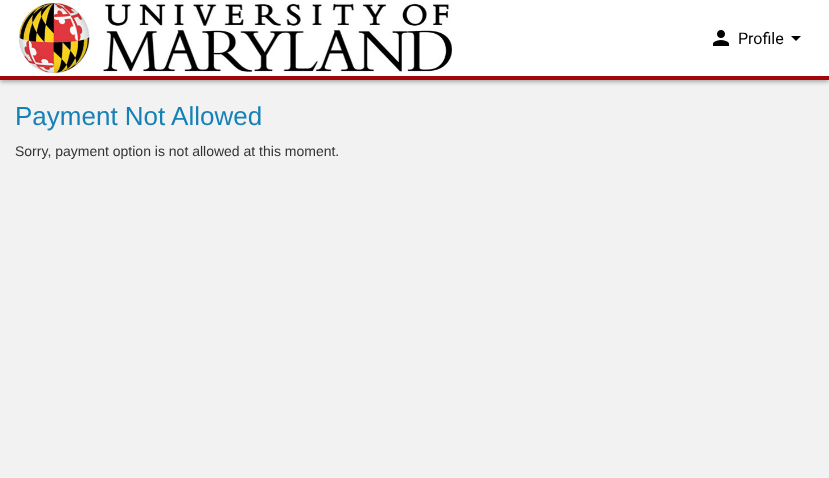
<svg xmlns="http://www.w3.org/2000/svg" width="829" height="478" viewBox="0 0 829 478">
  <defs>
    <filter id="blur1" x="-50%" y="-200%" width="200%" height="500%"><feGaussianBlur stdDeviation="2"/></filter>
  </defs>
  <rect width="100%" height="100%" fill="#f2f2f2"/>
  <rect x="0" y="2" width="829" height="80" fill="#000000" fill-opacity="0.3" filter="url(#blur1)"/>
  <rect x="0" y="0" width="829" height="76" fill="#ffffff"/>
  <rect x="0" y="76" width="829" height="4" fill="#a30606"/>
  <image x="19" y="3" width="433" height="70" href="img1.png"/>
  <image x="713" y="30" width="16" height="16" href="img2.png"/>
  <text x="738" y="44" font-family="Roboto" font-size="16" fill="#000000">Profile</text>
  <path d="M791 36H801L796 41Z" fill="#000000"/>
  <text x="15" y="125" font-family="Liberation Sans" font-size="26" fill="#1581b7">Payment Not Allowed</text>
  <text x="15" y="156" font-family="Liberation Sans" font-size="14" fill="#333333">Sorry, payment option is not allowed at this moment.</text>
</svg>
